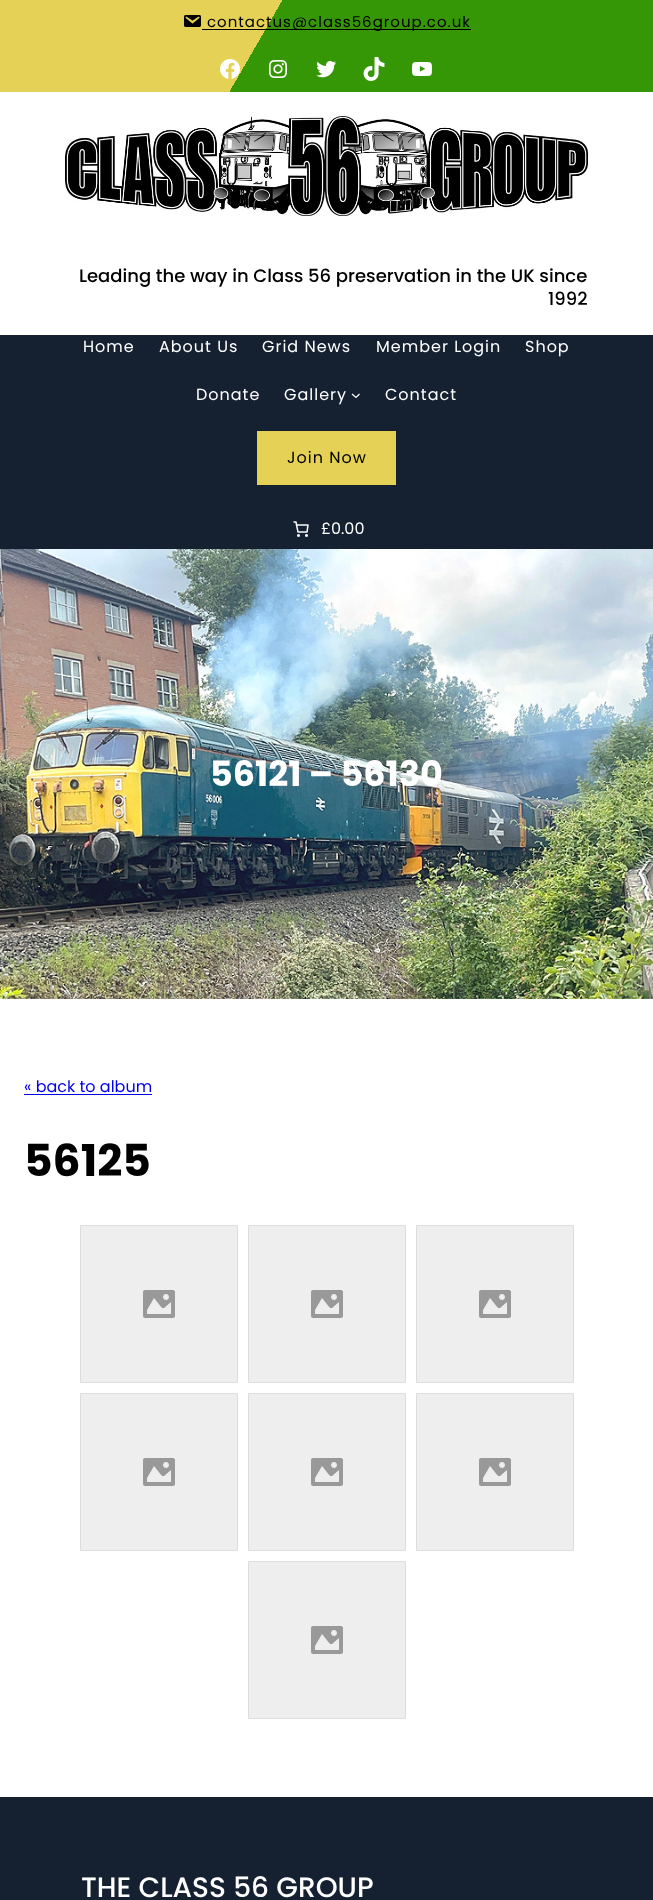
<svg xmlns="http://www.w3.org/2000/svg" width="653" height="1900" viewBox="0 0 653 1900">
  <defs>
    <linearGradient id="g1" gradientUnits="userSpaceOnUse" x1="62" y1="-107" x2="591" y2="199"><stop offset="0.4" stop-color="#e4d155"/><stop offset="0.4" stop-color="#369706"/></linearGradient>
  </defs>
  <rect width="100%" height="100%" fill="#ffffff"/>
  <rect x="0" y="0" width="653" height="92" fill="url(#g1)"/>
  <image x="184" y="15" width="17" height="12" href="img1.png"/>
  <rect x="202" y="29" width="269" height="1" fill="#000000"/>
  <text x="207" y="27" font-family="Poppins" font-size="15" letter-spacing="1" fill="#000000">contactus@class56group.co.uk</text>
  <image x="220" y="59" width="20" height="20" href="img2.png"/>
  <image x="269" y="60" width="18" height="18" href="img3.png"/>
  <image x="316" y="61" width="20" height="17" href="img4.png"/>
  <image x="363" y="57" width="22" height="24" href="img5.png"/>
  <image x="412" y="62" width="20" height="14" href="img6.png"/>
  <image x="65" y="116" width="523" height="100" href="img7.png"/>
  <text x="79" y="282" font-family="Poppins" font-size="18" font-weight="500" fill="#000000">Leading the way in Class 56 preservation in the UK since</text>
  <text x="548" y="305" font-family="Poppins" font-size="18" font-weight="500" fill="#000000">1992</text>
  <rect x="0" y="335" width="653" height="214" fill="#152031"/>
  <text x="83" y="352" font-family="Poppins" font-size="16" letter-spacing="1" fill="#ffffff">Home</text>
  <text x="159" y="352" font-family="Poppins" font-size="16" letter-spacing="1" fill="#ffffff">About Us</text>
  <text x="262" y="352" font-family="Poppins" font-size="16" letter-spacing="1" fill="#ffffff">Grid News</text>
  <text x="376" y="352" font-family="Poppins" font-size="16" letter-spacing="1" fill="#ffffff">Member Login</text>
  <text x="525" y="352" font-family="Poppins" font-size="16" letter-spacing="1" fill="#ffffff">Shop</text>
  <text x="196" y="400" font-family="Poppins" font-size="16" letter-spacing="1" fill="#ffffff">Donate</text>
  <text x="284" y="400" font-family="Poppins" font-size="16" letter-spacing="1" fill="#ffffff">Gallery</text>
  <path d="M352 394L356 397.5L359.5 394" fill="none" stroke="#ffffff" stroke-width="1.2"/>
  <text x="385" y="400" font-family="Poppins" font-size="16" letter-spacing="1" fill="#ffffff">Contact</text>
  <rect x="257" y="431" width="139" height="54" fill="#e4d155"/>
  <text x="287" y="463" font-family="Poppins" font-size="16" letter-spacing="1" fill="#000000">Join Now</text>
  <image x="293" y="521" width="16" height="16" href="img8.png"/>
  <text x="321" y="534" font-family="Poppins" font-size="16" fill="#ffffff">£0.00</text>
  <image x="0" y="549" width="653" height="450" href="img9.png"/>
  <text x="210" y="786" font-family="Poppins" font-size="35" font-weight="bold" fill="#ffffff">56121 – 56130</text>
  <text x="24" y="1092" font-family="Poppins" font-size="16" fill="#0000ee">« back to album</text>
  <rect x="24" y="1094" width="128" height="1" fill="#0000ee"/>
  <text x="24" y="1176" font-family="Poppins" font-size="44" font-weight="bold" fill="#000000">56125</text>
  <rect x="80.5" y="1225.5" width="157" height="157" fill="#eeeeee" stroke="#dddddd"/>
  <image x="143" y="1290" width="32" height="28" href="img10.png"/>
  <rect x="248.5" y="1225.5" width="157" height="157" fill="#eeeeee" stroke="#dddddd"/>
  <image x="311" y="1290" width="32" height="28" href="img10.png"/>
  <rect x="416.5" y="1225.5" width="157" height="157" fill="#eeeeee" stroke="#dddddd"/>
  <image x="479" y="1290" width="32" height="28" href="img10.png"/>
  <rect x="80.5" y="1393.5" width="157" height="157" fill="#eeeeee" stroke="#dddddd"/>
  <image x="143" y="1458" width="32" height="28" href="img10.png"/>
  <rect x="248.5" y="1393.5" width="157" height="157" fill="#eeeeee" stroke="#dddddd"/>
  <image x="311" y="1458" width="32" height="28" href="img10.png"/>
  <rect x="416.5" y="1393.5" width="157" height="157" fill="#eeeeee" stroke="#dddddd"/>
  <image x="479" y="1458" width="32" height="28" href="img10.png"/>
  <rect x="248.5" y="1561.5" width="157" height="157" fill="#eeeeee" stroke="#dddddd"/>
  <image x="311" y="1626" width="32" height="28" href="img10.png"/>
  <rect x="0" y="1797" width="653" height="103" fill="#152031"/>
  <text x="81" y="1897" font-family="Poppins" font-size="28" font-weight="500" fill="#ffffff">THE CLASS 56 GROUP</text>
</svg>
